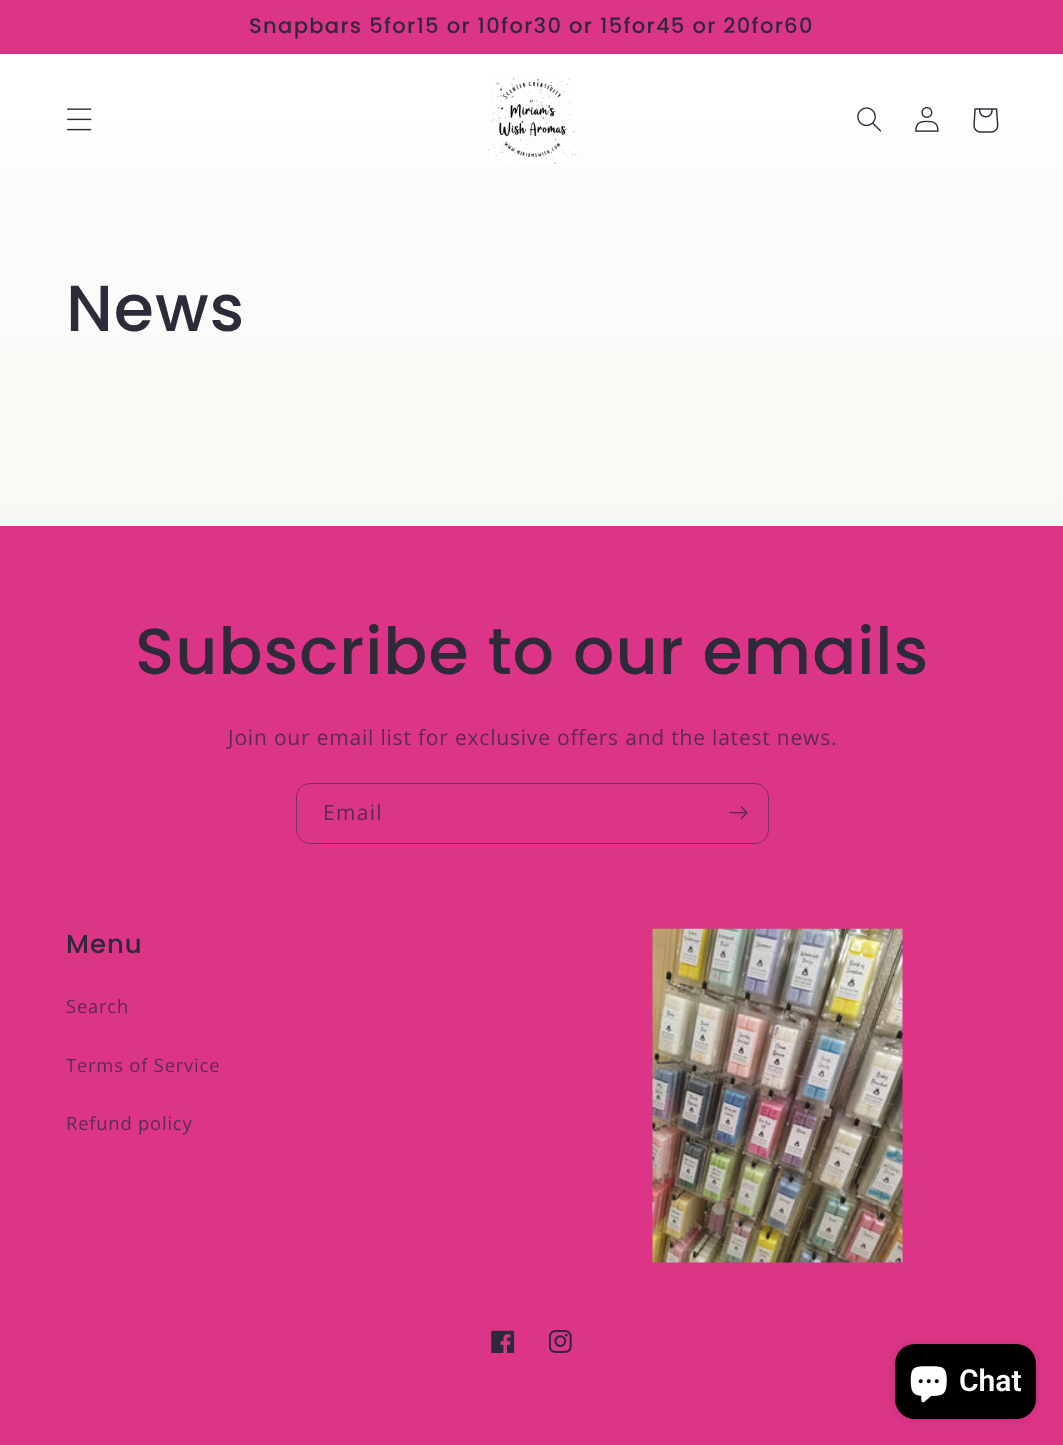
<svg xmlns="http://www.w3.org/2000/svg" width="1063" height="1445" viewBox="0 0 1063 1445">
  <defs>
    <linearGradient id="g1" gradientUnits="userSpaceOnUse" x1="532" y1="0" x2="532" y2="1445"><stop offset="0" stop-color="#ffffff"/><stop offset="1" stop-color="#f1ebe2"/></linearGradient>
    <filter id="blur1" x="-50%" y="-200%" width="200%" height="500%"><feGaussianBlur stdDeviation="3"/></filter>
  </defs>
  <rect width="100%" height="100%" fill="#ffffff"/>
  <rect x="0" y="125" width="1063" height="401" fill="url(#g1)"/>
  <rect x="0" y="0" width="1063" height="53" fill="#dc3487"/>
  <rect x="0" y="53" width="1063" height="1" fill="#ce3381"/>
  <text x="249" y="33" font-family="Poppins" font-size="21.1" font-weight="500" letter-spacing="1.3" fill="#2e2a39">Snapbars 5for15 or 10for30 or 15for45 or 20for60</text>
  <image x="67" y="108" width="25" height="23" href="img1.png"/>
  <image x="488" y="76" width="89" height="88" href="img2.png"/>
  <image x="857" y="107" width="25" height="25" href="img3.png"/>
  <image x="915" y="106" width="24" height="26" href="img4.png"/>
  <image x="973" y="108" width="26" height="25" href="img5.png"/>
  <text x="66" y="331" font-family="Poppins" font-size="65" font-weight="500" letter-spacing="1" fill="#2e2a39">News</text>
  <rect x="0" y="526" width="1063" height="919" fill="#dc3487"/>
  <text x="135" y="674" font-family="Poppins" font-size="65" font-weight="500" letter-spacing="1" fill="#2e2a39">Subscribe to our emails</text>
  <text x="228" y="745" font-family="Open Sans" font-size="21" letter-spacing="0.8" fill="#5a2d4d">Join our email list for exclusive offers and the latest news.</text>
  <rect x="296.5" y="783.5" width="472" height="60" rx="13.5" fill="none" stroke="#7c2f5c"/>
  <text x="323" y="820" font-family="Open Sans" font-size="21" letter-spacing="1.3" fill="#5a2d4d">Email</text>
  <image x="729" y="806" width="19" height="13" href="img6.png"/>
  <text x="66" y="953" font-family="Poppins" font-size="26" font-weight="500" letter-spacing="1" fill="#2e2a39">Menu</text>
  <text x="66" y="1013" font-family="Open Sans" font-size="18.4" letter-spacing="0.8" fill="#5a2d4d">Search</text>
  <text x="66" y="1072" font-family="Open Sans" font-size="18.4" letter-spacing="0.8" fill="#5a2d4d">Terms of Service</text>
  <text x="66" y="1130" font-family="Open Sans" font-size="18.4" letter-spacing="0.8" fill="#5a2d4d">Refund policy</text>
  <image x="652" y="928" width="251" height="335" href="img7.png"/>
  <image x="491" y="1330" width="24" height="23" href="img8.png"/>
  <image x="549" y="1330" width="23" height="23" href="img9.png"/>
  <rect x="0" y="1436" width="1063" height="1" fill="#ce3381"/>
  <rect x="895" y="1344" width="141" height="75" rx="20" fill="#000000" fill-opacity="0.15" filter="url(#blur1)"/>
  <rect x="895" y="1344" width="141" height="75" rx="20" fill="#000000"/>
  <image x="910" y="1366" width="37" height="37" href="img10.png"/>
  <text x="959" y="1391" font-family="Roboto" font-size="30" font-weight="600" fill="#ffffff">Chat</text>
</svg>
